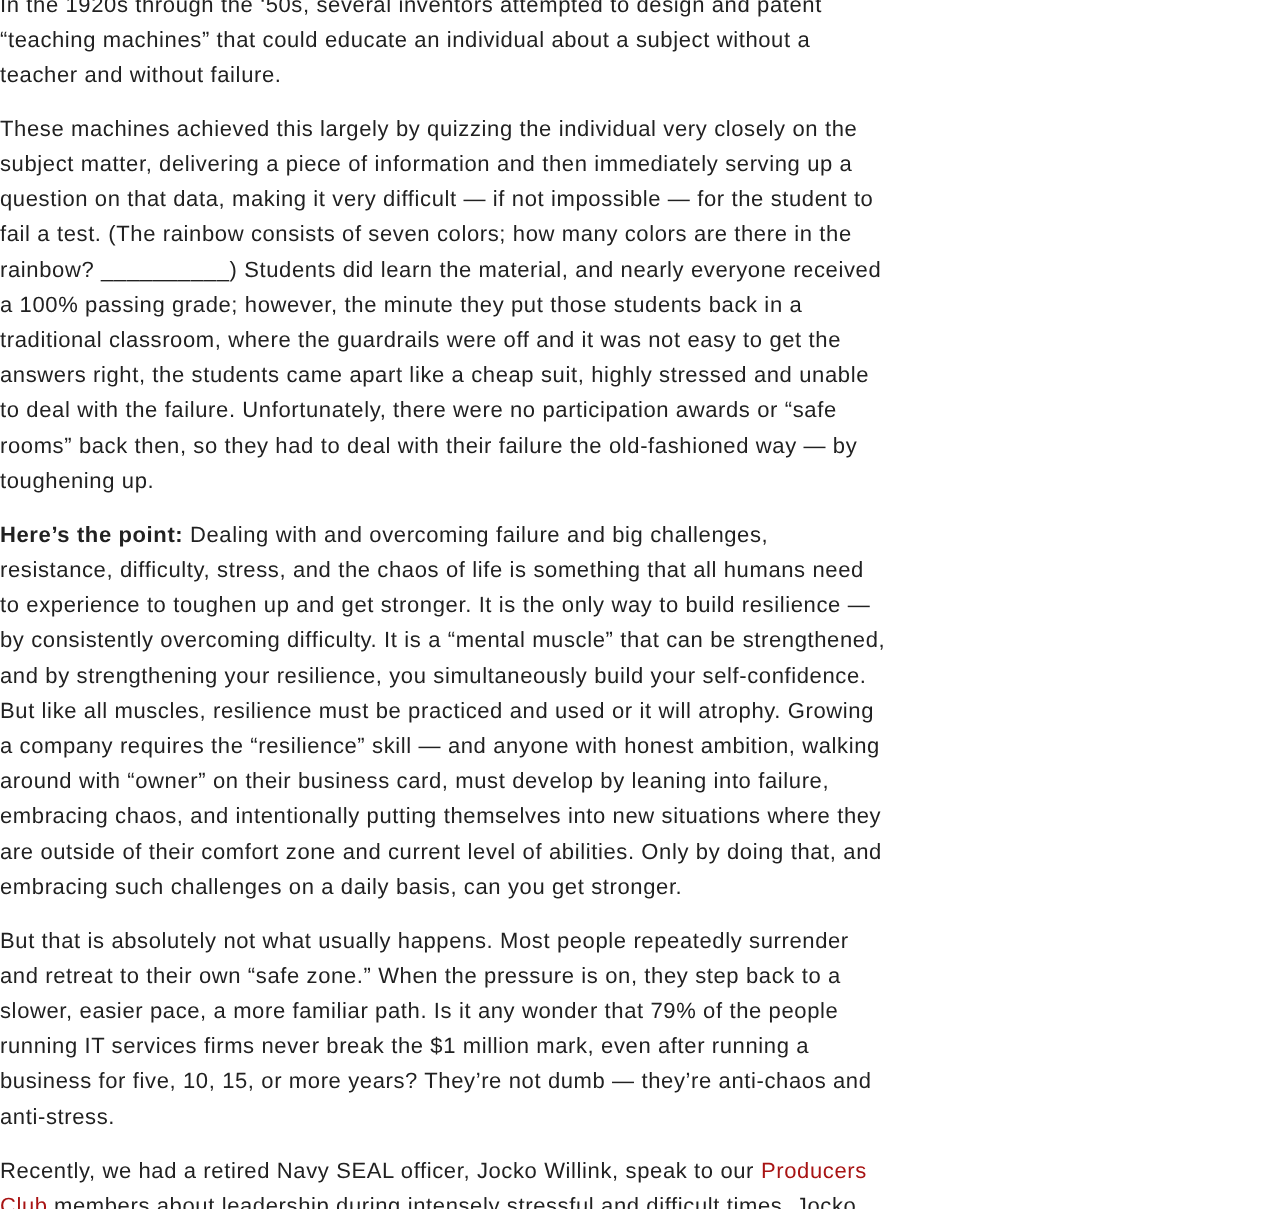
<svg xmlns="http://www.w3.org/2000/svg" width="1268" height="1209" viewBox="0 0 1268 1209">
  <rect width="100%" height="100%" fill="#ffffff"/>
  <text x="0" y="12" font-family="Liberation Sans" font-size="22" letter-spacing="0.62" fill="#212121">In the 1920s through the ‘50s, several inventors attempted to design and patent</text>
  <text x="0" y="47" font-family="Liberation Sans" font-size="22" letter-spacing="0.62" fill="#212121">“teaching machines” that could educate an individual about a subject without a</text>
  <text x="0" y="82" font-family="Liberation Sans" font-size="22" letter-spacing="0.62" fill="#212121">teacher and without failure.</text>
  <text x="0" y="136" font-family="Liberation Sans" font-size="22" letter-spacing="0.62" fill="#212121">These machines achieved this largely by quizzing the individual very closely on the</text>
  <text x="0" y="171" font-family="Liberation Sans" font-size="22" letter-spacing="0.62" fill="#212121">subject matter, delivering a piece of information and then immediately serving up a</text>
  <text x="0" y="206" font-family="Liberation Sans" font-size="22" letter-spacing="0.62" fill="#212121">question on that data, making it very difficult — if not impossible — for the student to</text>
  <text x="0" y="241" font-family="Liberation Sans" font-size="22" letter-spacing="0.62" fill="#212121">fail a test. (The rainbow consists of seven colors; how many colors are there in the</text>
  <text x="0" y="277" font-family="Liberation Sans" font-size="22" letter-spacing="0.62" fill="#212121">rainbow? __________) Students did learn the material, and nearly everyone received</text>
  <text x="0" y="312" font-family="Liberation Sans" font-size="22" letter-spacing="0.62" fill="#212121">a 100% passing grade; however, the minute they put those students back in a</text>
  <text x="0" y="347" font-family="Liberation Sans" font-size="22" letter-spacing="0.62" fill="#212121">traditional classroom, where the guardrails were off and it was not easy to get the</text>
  <text x="0" y="382" font-family="Liberation Sans" font-size="22" letter-spacing="0.62" fill="#212121">answers right, the students came apart like a cheap suit, highly stressed and unable</text>
  <text x="0" y="417" font-family="Liberation Sans" font-size="22" letter-spacing="0.62" fill="#212121">to deal with the failure. Unfortunately, there were no participation awards or “safe</text>
  <text x="0" y="453" font-family="Liberation Sans" font-size="22" letter-spacing="0.62" fill="#212121">rooms” back then, so they had to deal with their failure the old-fashioned way — by</text>
  <text x="0" y="488" font-family="Liberation Sans" font-size="22" letter-spacing="0.62" fill="#212121">toughening up.</text>
  <text x="0" y="542" font-family="Liberation Sans" font-size="22" font-weight="bold" letter-spacing="0.62" fill="#212121">Here’s the point:</text>
  <text x="190" y="542" font-family="Liberation Sans" font-size="22" letter-spacing="0.62" fill="#212121">Dealing with and overcoming failure and big challenges,</text>
  <text x="0" y="577" font-family="Liberation Sans" font-size="22" letter-spacing="0.62" fill="#212121">resistance, difficulty, stress, and the chaos of life is something that all humans need</text>
  <text x="0" y="612" font-family="Liberation Sans" font-size="22" letter-spacing="0.62" fill="#212121">to experience to toughen up and get stronger. It is the only way to build resilience —</text>
  <text x="0" y="647" font-family="Liberation Sans" font-size="22" letter-spacing="0.62" fill="#212121">by consistently overcoming difficulty. It is a “mental muscle” that can be strengthened,</text>
  <text x="0" y="683" font-family="Liberation Sans" font-size="22" letter-spacing="0.62" fill="#212121">and by strengthening your resilience, you simultaneously build your self-confidence.</text>
  <text x="0" y="718" font-family="Liberation Sans" font-size="22" letter-spacing="0.62" fill="#212121">But like all muscles, resilience must be practiced and used or it will atrophy. Growing</text>
  <text x="0" y="753" font-family="Liberation Sans" font-size="22" letter-spacing="0.62" fill="#212121">a company requires the “resilience” skill — and anyone with honest ambition, walking</text>
  <text x="0" y="788" font-family="Liberation Sans" font-size="22" letter-spacing="0.62" fill="#212121">around with “owner” on their business card, must develop by leaning into failure,</text>
  <text x="0" y="823" font-family="Liberation Sans" font-size="22" letter-spacing="0.62" fill="#212121">embracing chaos, and intentionally putting themselves into new situations where they</text>
  <text x="0" y="859" font-family="Liberation Sans" font-size="22" letter-spacing="0.62" fill="#212121">are outside of their comfort zone and current level of abilities. Only by doing that, and</text>
  <text x="0" y="894" font-family="Liberation Sans" font-size="22" letter-spacing="0.62" fill="#212121">embracing such challenges on a daily basis, can you get stronger.</text>
  <text x="0" y="948" font-family="Liberation Sans" font-size="22" letter-spacing="0.62" fill="#212121">But that is absolutely not what usually happens. Most people repeatedly surrender</text>
  <text x="0" y="983" font-family="Liberation Sans" font-size="22" letter-spacing="0.62" fill="#212121">and retreat to their own “safe zone.” When the pressure is on, they step back to a</text>
  <text x="0" y="1018" font-family="Liberation Sans" font-size="22" letter-spacing="0.62" fill="#212121">slower, easier pace, a more familiar path. Is it any wonder that 79% of the people</text>
  <text x="0" y="1053" font-family="Liberation Sans" font-size="22" letter-spacing="0.62" fill="#212121">running IT services firms never break the $1 million mark, even after running a</text>
  <text x="0" y="1088" font-family="Liberation Sans" font-size="22" letter-spacing="0.62" fill="#212121">business for five, 10, 15, or more years? They’re not dumb — they’re anti-chaos and</text>
  <text x="0" y="1124" font-family="Liberation Sans" font-size="22" letter-spacing="0.62" fill="#212121">anti-stress.</text>
  <text x="0" y="1178" font-family="Liberation Sans" font-size="22" letter-spacing="0.62" fill="#212121">Recently, we had a retired Navy SEAL officer, Jocko Willink, speak to our</text>
  <text x="761" y="1178" font-family="Liberation Sans" font-size="22" letter-spacing="0.62" fill="#a81313">Producers</text>
  <text x="0" y="1213" font-family="Liberation Sans" font-size="22" letter-spacing="0.62" fill="#a81313">Club</text>
  <text x="54" y="1213" font-family="Liberation Sans" font-size="22" letter-spacing="0.62" fill="#212121">members about leadership during intensely stressful and difficult times. Jocko</text>
</svg>
